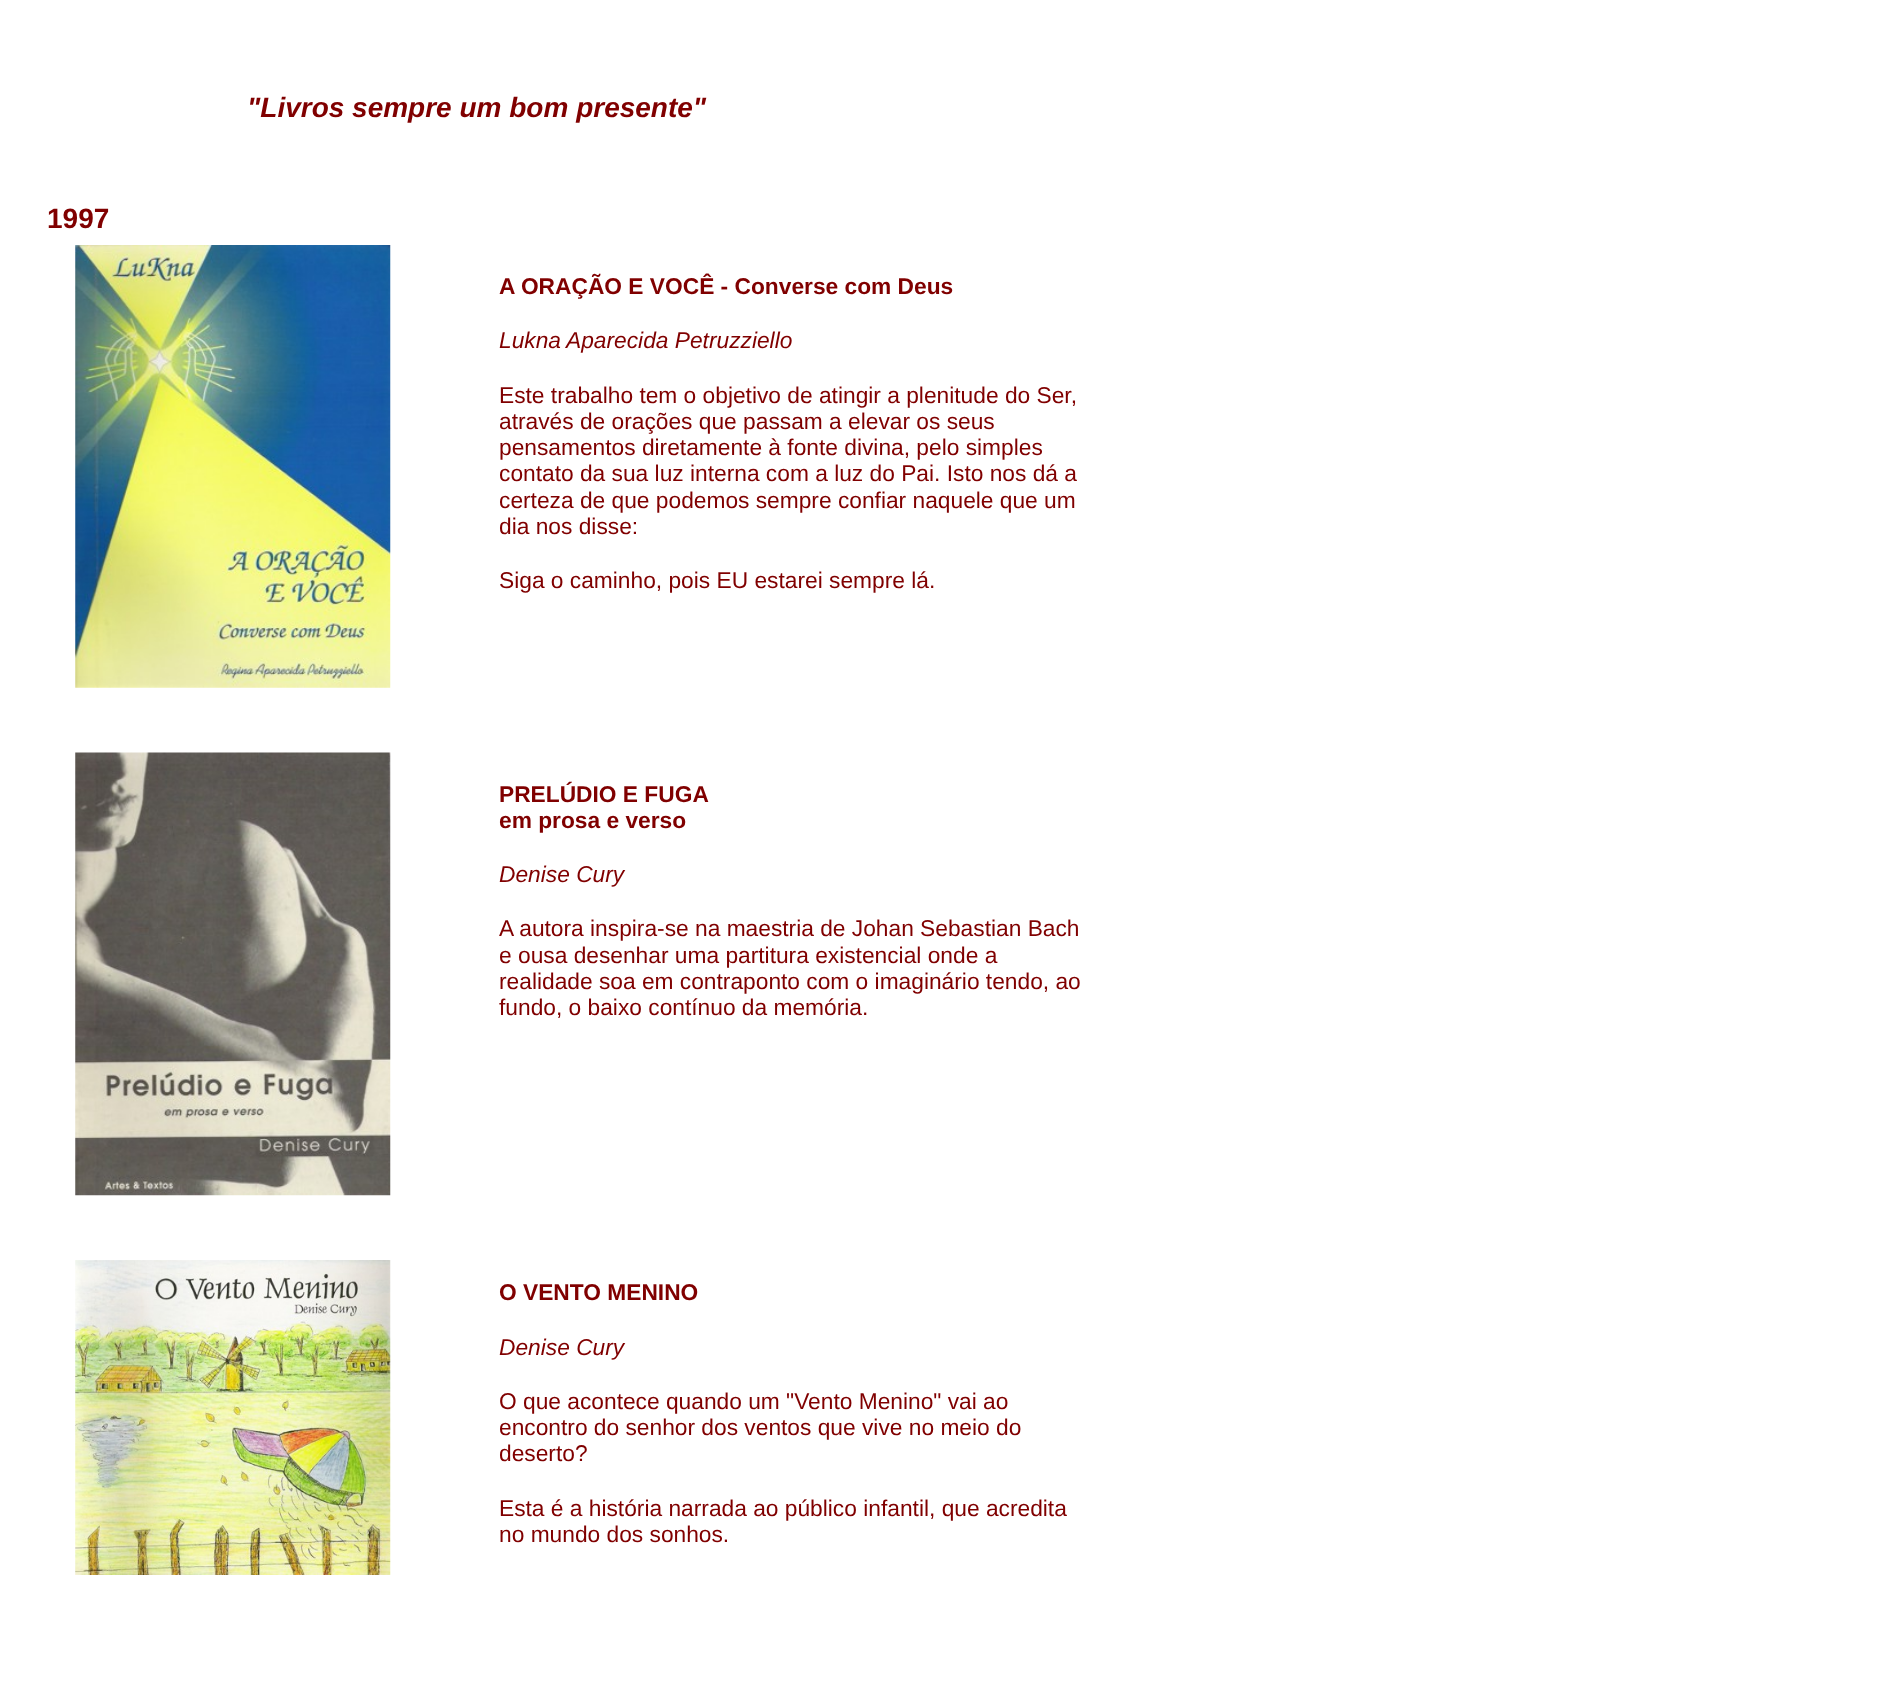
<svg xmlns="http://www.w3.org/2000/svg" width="1888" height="1689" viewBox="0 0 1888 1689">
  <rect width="100%" height="100%" fill="#ffffff"/>
  <text x="247" y="117" font-family="Liberation Sans" font-size="28" font-weight="bold" font-style="italic" fill="#800000">"Livros sempre um bom presente"</text>
  <text x="47" y="228" font-family="Liberation Sans" font-size="28" font-weight="bold" fill="#800000">1997</text>
  <image x="75" y="245" width="316" height="443" href="img1.png"/>
  <text x="499" y="294" font-family="Liberation Sans" font-size="22.75" font-weight="bold" fill="#800000">A ORAÇÃO E VOCÊ - Converse com Deus</text>
  <text x="499" y="348" font-family="Liberation Sans" font-size="22.75" font-style="italic" fill="#800000">Lukna</text>
  <text x="566" y="348" font-family="Liberation Sans" font-size="22.75" font-style="italic" fill="#800000">Aparecida Petruzziello</text>
  <text x="499" y="403" font-family="Liberation Sans" font-size="22.75" fill="#800000">Este trabalho tem o objetivo de atingir a plenitude do Ser,</text>
  <text x="499" y="429" font-family="Liberation Sans" font-size="22.75" fill="#800000">através de orações que passam a elevar os seus</text>
  <text x="499" y="455" font-family="Liberation Sans" font-size="22.75" fill="#800000">pensamentos diretamente à fonte divina, pelo simples</text>
  <text x="499" y="481" font-family="Liberation Sans" font-size="22.75" fill="#800000">contato da sua luz interna com a luz do Pai. Isto nos dá a</text>
  <text x="499" y="508" font-family="Liberation Sans" font-size="22.75" fill="#800000">certeza de que podemos sempre confiar naquele que um</text>
  <text x="499" y="534" font-family="Liberation Sans" font-size="22.75" fill="#800000">dia nos disse:</text>
  <text x="499" y="588" font-family="Liberation Sans" font-size="22.75" fill="#800000">Siga o caminho, pois EU estarei sempre lá.</text>
  <image x="75" y="752" width="316" height="444" href="img2.png"/>
  <text x="499" y="802" font-family="Liberation Sans" font-size="22.75" font-weight="bold" fill="#800000">PRELÚDIO E FUGA</text>
  <text x="499" y="828" font-family="Liberation Sans" font-size="22.75" font-weight="bold" fill="#800000">em prosa e verso</text>
  <text x="499" y="882" font-family="Liberation Sans" font-size="22.75" font-style="italic" fill="#800000">Denise Cury</text>
  <text x="499" y="936" font-family="Liberation Sans" font-size="22.75" fill="#800000">A autora inspira-se na maestria de Johan Sebastian Bach</text>
  <text x="499" y="963" font-family="Liberation Sans" font-size="22.75" fill="#800000">e ousa desenhar uma partitura existencial onde a</text>
  <text x="499" y="989" font-family="Liberation Sans" font-size="22.75" fill="#800000">realidade soa em contraponto com o imaginário tendo, ao</text>
  <text x="499" y="1015" font-family="Liberation Sans" font-size="22.75" fill="#800000">fundo, o baixo contínuo da memória.</text>
  <image x="75" y="1260" width="316" height="315" href="img3.png"/>
  <text x="499" y="1300" font-family="Liberation Sans" font-size="22.75" font-weight="bold" fill="#800000">O VENTO MENINO</text>
  <text x="499" y="1355" font-family="Liberation Sans" font-size="22.75" font-style="italic" fill="#800000">Denise Cury</text>
  <text x="499" y="1409" font-family="Liberation Sans" font-size="22.75" fill="#800000">O que acontece quando um "Vento Menino" vai ao</text>
  <text x="499" y="1435" font-family="Liberation Sans" font-size="22.75" fill="#800000">encontro do senhor dos ventos que vive no meio do</text>
  <text x="499" y="1461" font-family="Liberation Sans" font-size="22.75" fill="#800000">deserto?</text>
  <text x="499" y="1516" font-family="Liberation Sans" font-size="22.75" fill="#800000">Esta é a história narrada ao público infantil, que acredita</text>
  <text x="499" y="1542" font-family="Liberation Sans" font-size="22.75" fill="#800000">no mundo dos sonhos.</text>
</svg>
